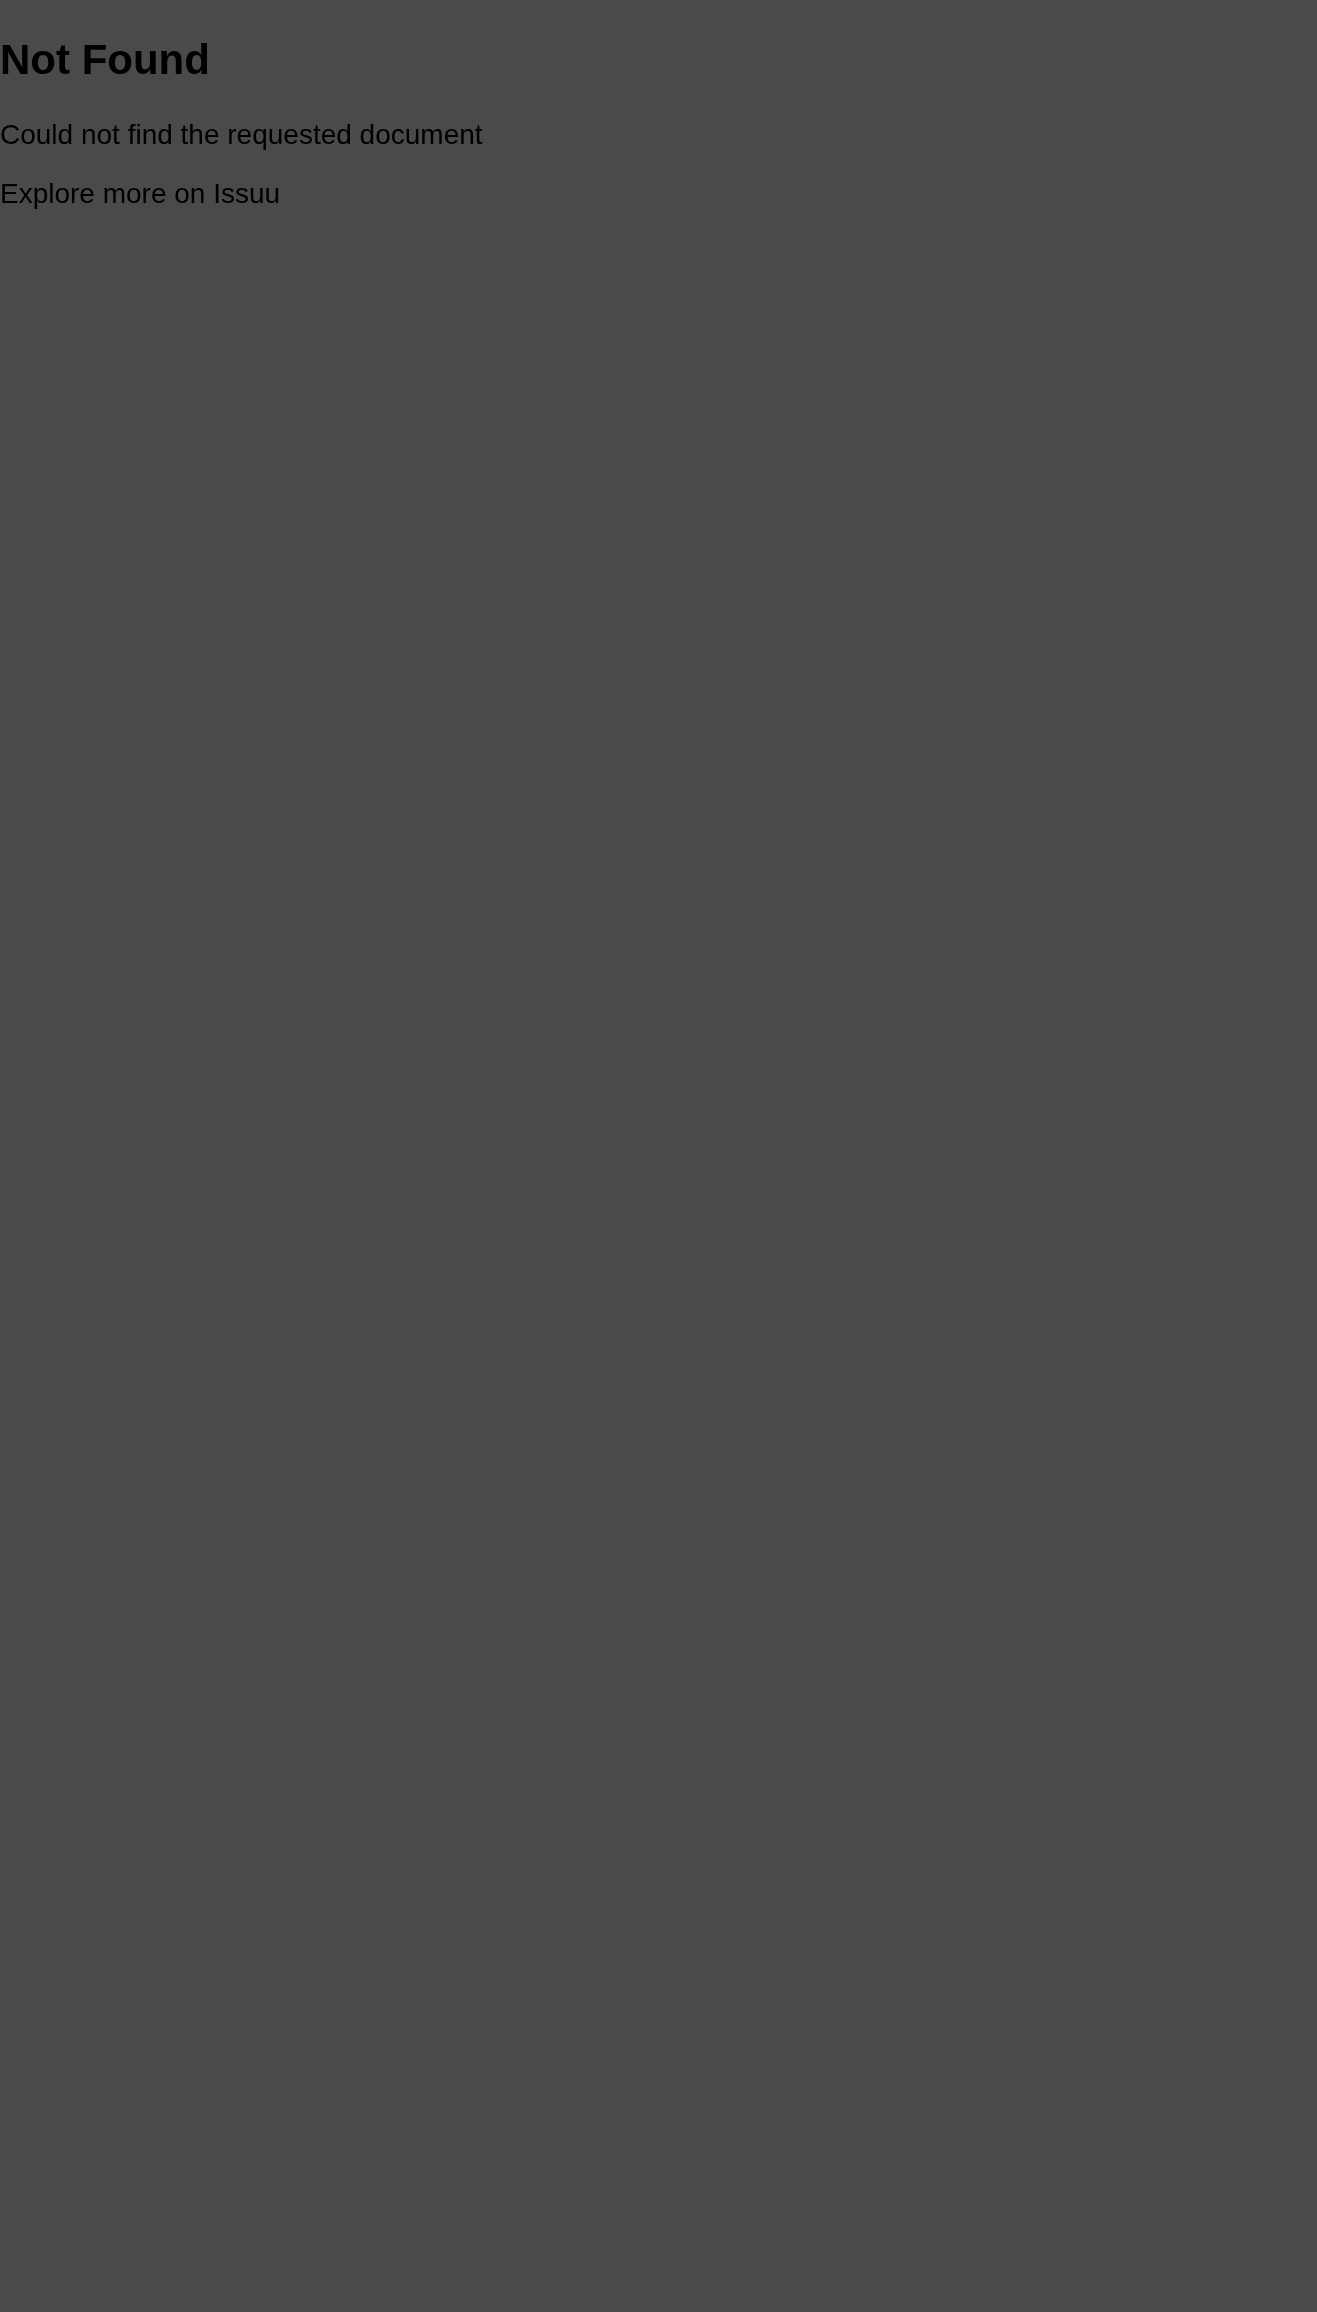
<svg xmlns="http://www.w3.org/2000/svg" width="1317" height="2312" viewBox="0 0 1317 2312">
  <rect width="100%" height="100%" fill="#4a4a4a"/>
  <image x="1" y="43" width="482" height="166" href="img1.png"/>
</svg>
